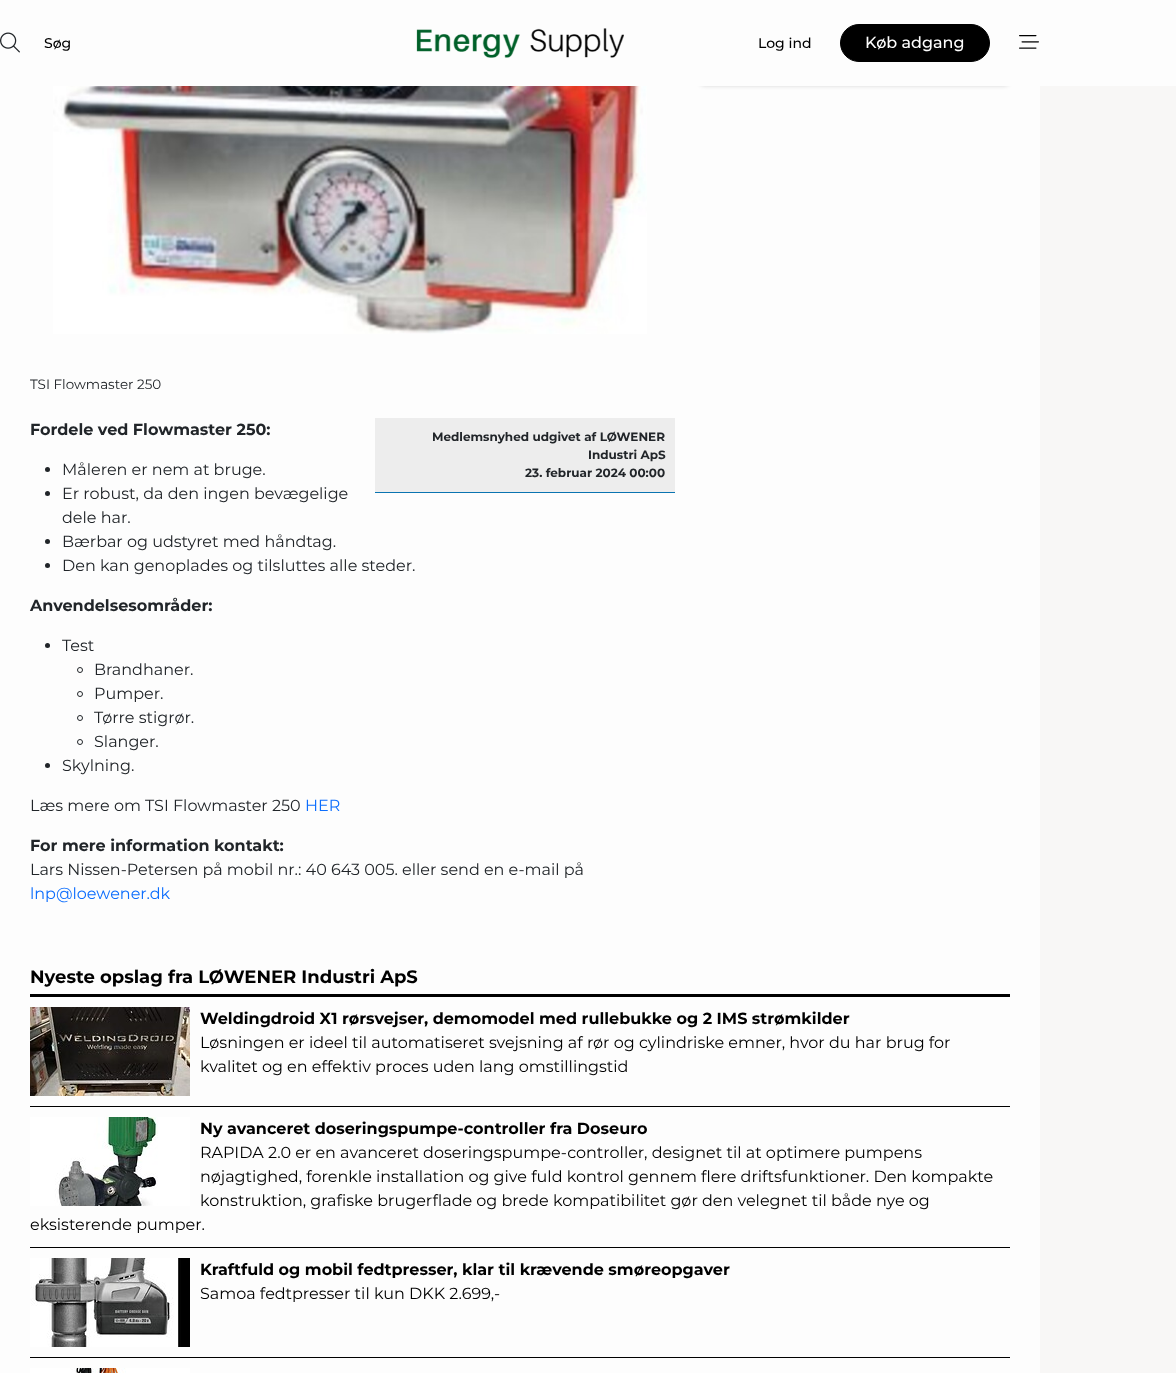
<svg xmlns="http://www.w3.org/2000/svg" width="1176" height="1373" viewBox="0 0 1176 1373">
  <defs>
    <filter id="blur1" x="-50%" y="-200%" width="200%" height="500%"><feGaussianBlur stdDeviation="2"/></filter>
  </defs>
  <rect width="100%" height="100%" fill="#f8f7f6"/>
  <rect x="0" y="86" width="1040" height="1287" fill="#fdfdfd"/>
  <rect x="699" y="-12" width="311" height="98" rx="6" fill="#000000" fill-opacity="0.15" filter="url(#blur1)"/>
  <rect x="0" y="0" width="1176" height="86" fill="#fdfdfd"/>
  <image x="0" y="32" width="20" height="21" href="img1.png"/>
  <text x="44" y="48" font-family="Montserrat" font-size="14" font-weight="500" fill="#000000">Søg</text>
  <image x="416" y="28" width="208" height="30" href="img2.png"/>
  <text x="758" y="48" font-family="Montserrat" font-size="14" font-weight="500" fill="#000000">Log ind</text>
  <rect x="840.5" y="24.5" width="149" height="37" rx="18.5" fill="#000000" stroke="#000000"/>
  <text x="865" y="48" font-family="Montserrat" font-size="16" font-weight="500" fill="#fdfdfd">Køb adgang</text>
  <image x="1019" y="35" width="20" height="14" href="img3.png"/>
  <image x="53" y="86" width="594" height="248" href="img4.png"/>
  <text x="30" y="389" font-family="Montserrat" font-size="13.5" fill="#212529">TSI Flowmaster 250</text>
  <text x="30" y="435" font-family="Montserrat" font-size="16" font-weight="bold" fill="#212529">Fordele ved Flowmaster 250:</text>
  <rect x="375" y="418" width="300" height="74" fill="#ededed"/>
  <rect x="375" y="492" width="300" height="1" fill="#0a74b1"/>
  <text x="432" y="441" font-family="Montserrat" font-size="12" font-weight="bold" fill="#212529">Medlemsnyhed udgivet af LØWENER</text>
  <text x="588" y="459" font-family="Montserrat" font-size="12" font-weight="bold" fill="#212529">Industri ApS</text>
  <text x="525" y="477" font-family="Montserrat" font-size="12" font-weight="bold" fill="#212529">23. februar 2024 00:00</text>
  <circle cx="47.5" cy="469.5" r="2.5" fill="#212529"/>
  <text x="62" y="475" font-family="Montserrat" font-size="16" fill="#212529">Måleren er nem at bruge.</text>
  <circle cx="47.5" cy="493.5" r="2.5" fill="#212529"/>
  <text x="62" y="499" font-family="Montserrat" font-size="16" fill="#212529">Er robust, da den ingen bevægelige</text>
  <text x="62" y="523" font-family="Montserrat" font-size="16" fill="#212529">dele har.</text>
  <circle cx="47.5" cy="541.5" r="2.5" fill="#212529"/>
  <text x="62" y="547" font-family="Montserrat" font-size="16" fill="#212529">Bærbar og udstyret med håndtag.</text>
  <circle cx="47.5" cy="565.5" r="2.5" fill="#212529"/>
  <text x="62" y="571" font-family="Montserrat" font-size="16" fill="#212529">Den kan genoplades og tilsluttes alle steder.</text>
  <text x="30" y="611" font-family="Montserrat" font-size="16" font-weight="bold" fill="#212529">Anvendelsesområder:</text>
  <circle cx="47.5" cy="645.5" r="2.5" fill="#212529"/>
  <text x="62" y="651" font-family="Montserrat" font-size="16" fill="#212529">Test</text>
  <circle cx="80" cy="670" r="2.5" fill="none" stroke="#212529"/>
  <text x="94" y="675" font-family="Montserrat" font-size="16" fill="#212529">Brandhaner.</text>
  <circle cx="80" cy="694" r="2.5" fill="none" stroke="#212529"/>
  <text x="94" y="699" font-family="Montserrat" font-size="16" fill="#212529">Pumper.</text>
  <circle cx="80" cy="718" r="2.5" fill="none" stroke="#212529"/>
  <text x="94" y="723" font-family="Montserrat" font-size="16" fill="#212529">Tørre stigrør.</text>
  <circle cx="80" cy="742" r="2.5" fill="none" stroke="#212529"/>
  <text x="94" y="747" font-family="Montserrat" font-size="16" fill="#212529">Slanger.</text>
  <circle cx="47.5" cy="765.5" r="2.5" fill="#212529"/>
  <text x="62" y="771" font-family="Montserrat" font-size="16" fill="#212529">Skylning.</text>
  <text x="30" y="811" font-family="Montserrat" font-size="16" fill="#212529">Læs mere om TSI Flowmaster 250</text>
  <text x="305" y="811" font-family="Montserrat" font-size="16" fill="#0d6efd">HER</text>
  <text x="30" y="851" font-family="Montserrat" font-size="16" font-weight="bold" fill="#212529">For mere information kontakt:</text>
  <text x="30" y="875" font-family="Montserrat" font-size="16" fill="#212529">Lars Nissen-Petersen på mobil nr.: 40 643 005. eller send en e-mail på</text>
  <text x="30" y="899" font-family="Montserrat" font-size="16" fill="#0d6efd">lnp@loewener.dk</text>
  <rect x="30" y="994" width="980" height="3" fill="#000000"/>
  <text x="30" y="983" font-family="Montserrat" font-size="18" font-weight="bold" fill="#000000">Nyeste opslag fra LØWENER Industri ApS</text>
  <rect x="30" y="1106" width="980" height="1" fill="#000000"/>
  <image x="30" y="1007" width="160" height="89" href="img5.png"/>
  <text x="200" y="1024" font-family="Montserrat" font-size="16" font-weight="bold" fill="#000000">Weldingdroid X1 rørsvejser, demomodel med rullebukke og 2 IMS strømkilder</text>
  <text x="200" y="1048" font-family="Montserrat" font-size="16" fill="#000000">Løsningen er ideel til automatiseret svejsning af rør og cylindriske emner, hvor du har brug for</text>
  <text x="200" y="1072" font-family="Montserrat" font-size="16" fill="#000000">kvalitet og en effektiv proces uden lang omstillingstid</text>
  <rect x="30" y="1247" width="980" height="1" fill="#000000"/>
  <image x="30" y="1117" width="160" height="89" href="img6.png"/>
  <text x="200" y="1134" font-family="Montserrat" font-size="16" font-weight="bold" fill="#000000">Ny avanceret doseringspumpe-controller fra Doseuro</text>
  <text x="200" y="1158" font-family="Montserrat" font-size="16" fill="#000000">RAPIDA 2.0 er en avanceret doseringspumpe-controller, designet til at optimere pumpens</text>
  <text x="200" y="1182" font-family="Montserrat" font-size="16" fill="#000000">nøjagtighed, forenkle installation og give fuld kontrol gennem flere driftsfunktioner. Den kompakte</text>
  <text x="200" y="1206" font-family="Montserrat" font-size="16" fill="#000000">konstruktion, grafiske brugerflade og brede kompatibilitet gør den velegnet til både nye og</text>
  <text x="30" y="1230" font-family="Montserrat" font-size="16" fill="#000000">eksisterende pumper.</text>
  <rect x="30" y="1357" width="980" height="1" fill="#000000"/>
  <image x="30" y="1258" width="160" height="89" href="img7.png"/>
  <text x="200" y="1275" font-family="Montserrat" font-size="16" font-weight="bold" fill="#000000">Kraftfuld og mobil fedtpresser, klar til krævende smøreopgaver</text>
  <text x="200" y="1299" font-family="Montserrat" font-size="16" fill="#000000">Samoa fedtpresser til kun DKK 2.699,-</text>
  <image x="30" y="1368" width="160" height="5" href="img8.png"/>
</svg>
